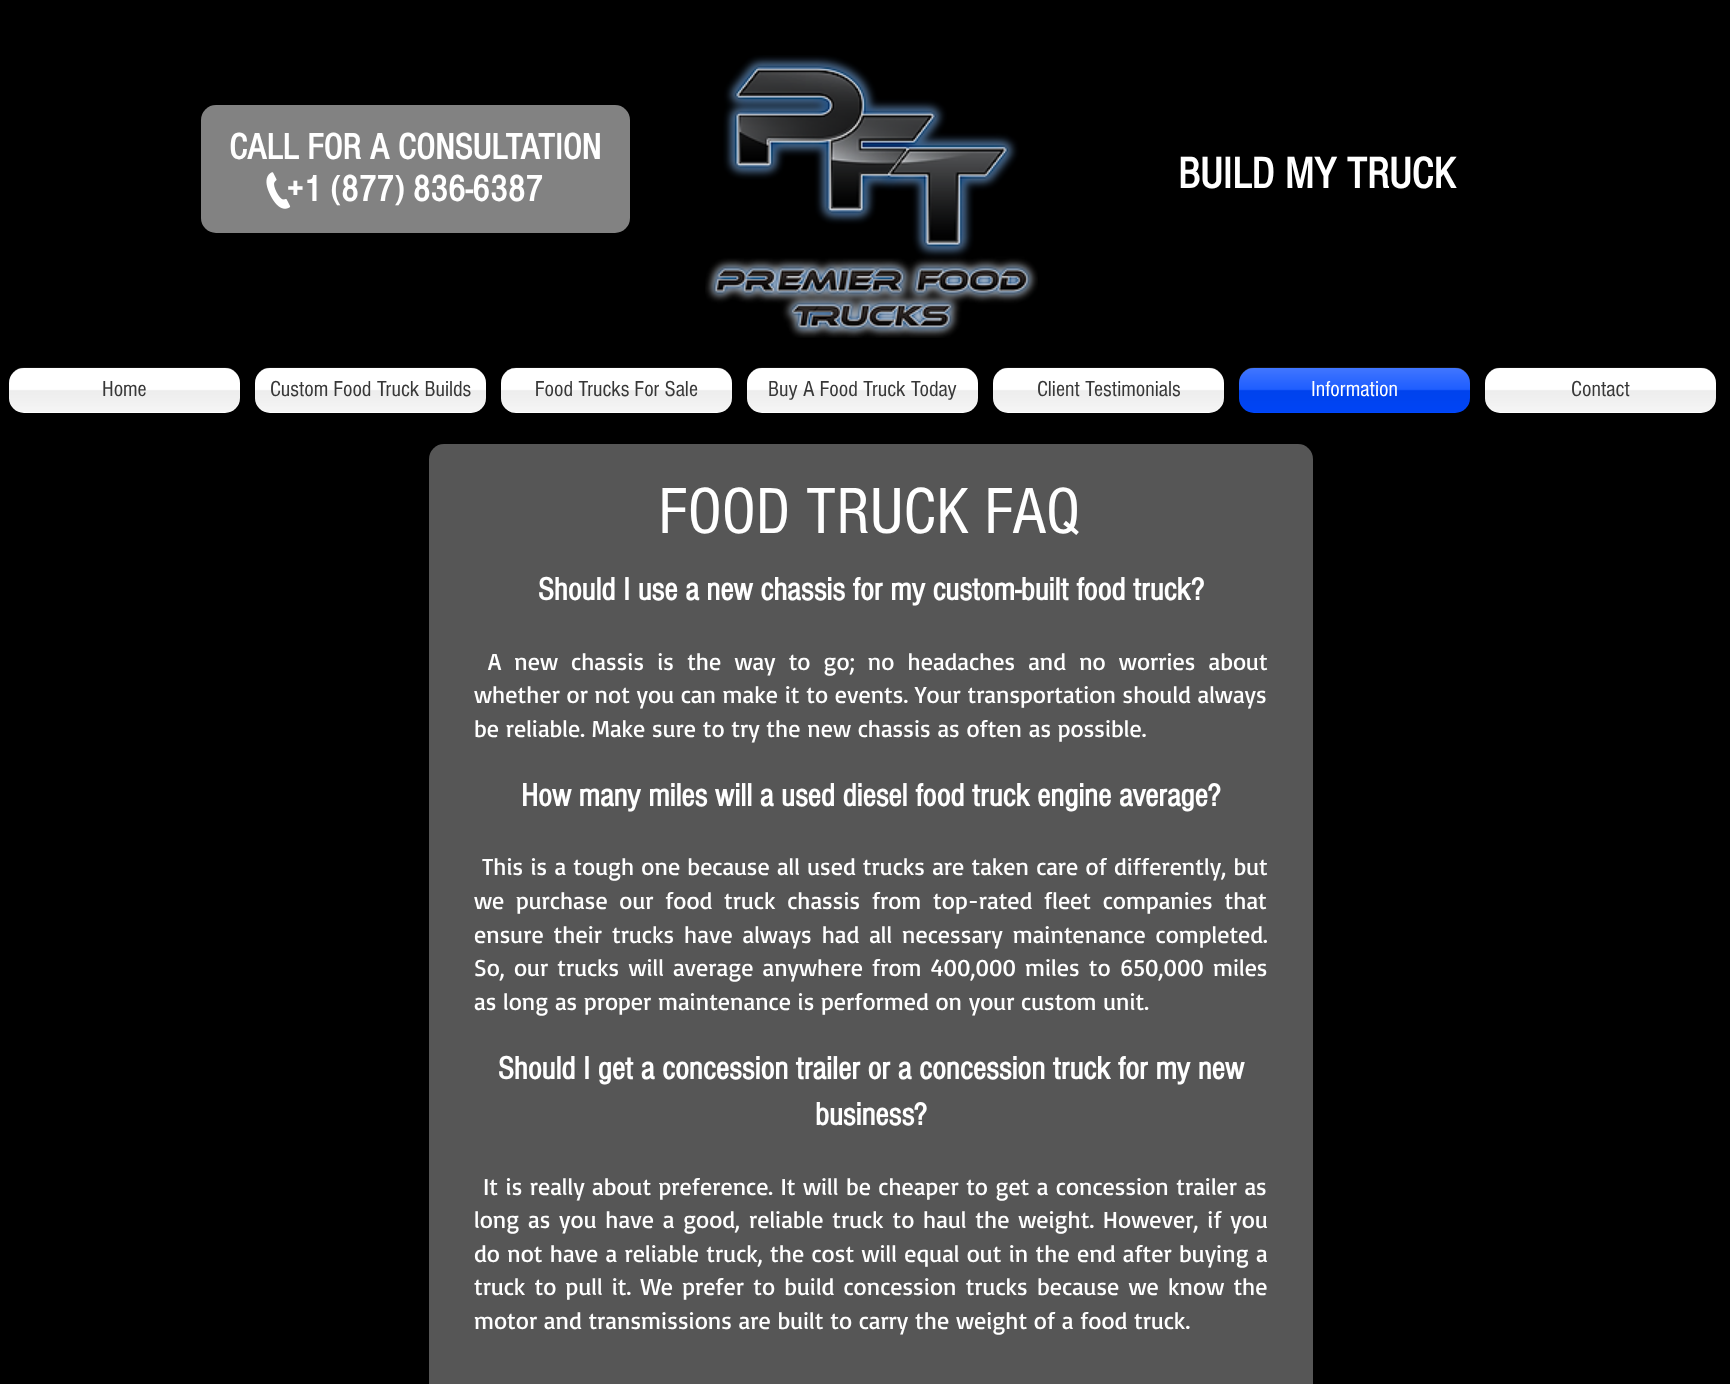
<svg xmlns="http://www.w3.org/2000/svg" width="1730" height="1384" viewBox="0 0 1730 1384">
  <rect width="100%" height="100%" fill="#000000"/>
  <rect x="201" y="105" width="429" height="128" rx="15" fill="#828282"/>
  <text x="229" y="159" font-family="'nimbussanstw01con'" font-size="37.5" font-weight="bold" fill="#ffffff">CALL FOR A CONSULTATION</text>
  <text x="286" y="201" font-family="'nimbussanstw01con'" font-size="37.5" font-weight="bold" fill="#ffffff">+1 (877) 836-6387</text>
  <image x="266" y="172" width="25" height="37" href="img1.png"/>
  <image x="705" y="55" width="333" height="283" href="img2.png"/>
  <text x="1178" y="188" font-family="'nimbussanstw01con'" font-size="45" font-weight="bold" fill="#ffffff">BUILD MY TRUCK</text>
  <rect x="9" y="368" width="231" height="45" rx="15" fill="#ffffff"/>
  <image x="9" y="367" width="231" height="45" href="img3.png"/>
  <text x="102" y="396" font-family="'nimbussanstw01con'" font-size="22.5" fill="#383838">Home</text>
  <rect x="255" y="368" width="231" height="45" rx="15" fill="#ffffff"/>
  <image x="255" y="367" width="231" height="45" href="img3.png"/>
  <text x="270" y="396" font-family="'nimbussanstw01con'" font-size="22.5" fill="#383838">Custom Food Truck Builds</text>
  <rect x="501" y="368" width="231" height="45" rx="15" fill="#ffffff"/>
  <image x="501" y="367" width="231" height="45" href="img4.png"/>
  <text x="535" y="396" font-family="'nimbussanstw01con'" font-size="22.5" fill="#383838">Food Trucks For Sale</text>
  <rect x="747" y="368" width="231" height="45" rx="15" fill="#ffffff"/>
  <image x="747" y="367" width="231" height="45" href="img3.png"/>
  <text x="768" y="396" font-family="'nimbussanstw01con'" font-size="22.5" fill="#383838">Buy A Food Truck Today</text>
  <rect x="993" y="368" width="231" height="45" rx="15" fill="#ffffff"/>
  <image x="993" y="367" width="231" height="45" href="img3.png"/>
  <text x="1037" y="396" font-family="'nimbussanstw01con'" font-size="22.5" fill="#383838">Client Testimonials</text>
  <rect x="1239" y="368" width="231" height="45" rx="15" fill="#0048ff"/>
  <image x="1239" y="367" width="231" height="45" href="img5.png"/>
  <text x="1311" y="396" font-family="'nimbussanstw01con'" font-size="22.5" fill="#ffffff">Information</text>
  <rect x="1485" y="368" width="231" height="45" rx="15" fill="#ffffff"/>
  <image x="1485" y="367" width="231" height="45" href="img3.png"/>
  <text x="1571" y="396" font-family="'nimbussanstw01con'" font-size="22.5" fill="#383838">Contact</text>
  <rect x="429" y="444" width="884" height="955" rx="15" fill="#565656"/>
  <text x="659" y="533" font-family="'nimbussanstw01con'" font-size="67.5" fill="#ffffff">FOOD TRUCK FAQ</text>
  <text x="538" y="600" font-family="'nimbussanstw01con'" font-size="33" font-weight="bold" fill="#ffffff">Should I use a new chassis for my custom-built food truck?</text>
  <text x="488" y="670" word-spacing="6.4" font-family="Basic" font-size="24" fill="#ffffff">A new chassis is the way to go; no headaches and no worries about</text>
  <text x="474" y="703" font-family="Basic" font-size="24" fill="#ffffff">whether or not you can make it to events. Your transportation should always</text>
  <text x="474" y="737" font-family="Basic" font-size="24" fill="#ffffff">be reliable. Make sure to try the new chassis as often as possible.</text>
  <text x="521" y="806" font-family="'nimbussanstw01con'" font-size="33" font-weight="bold" fill="#ffffff">How many miles will a used diesel food truck engine average?</text>
  <text x="482" y="875" word-spacing="0.5" font-family="Basic" font-size="24" fill="#ffffff">This is a tough one because all used trucks are taken care of differently, but</text>
  <text x="474" y="909" word-spacing="5" font-family="Basic" font-size="24" fill="#ffffff">we purchase our food truck chassis from top-rated fleet companies that</text>
  <text x="474" y="943" word-spacing="3.25" font-family="Basic" font-size="24" fill="#ffffff">ensure their trucks have always had all necessary maintenance completed.</text>
  <text x="474" y="976" word-spacing="2.4" font-family="Basic" font-size="24" fill="#ffffff">So, our trucks will average anywhere from 400,000 miles to 650,000 miles</text>
  <text x="474" y="1010" font-family="Basic" font-size="24" fill="#ffffff">as long as proper maintenance is performed on your custom unit.</text>
  <text x="498" y="1079" font-family="'nimbussanstw01con'" font-size="33" font-weight="bold" fill="#ffffff">Should I get a concession trailer or a concession truck for my new</text>
  <text x="815" y="1125" font-family="'nimbussanstw01con'" font-size="33" font-weight="bold" fill="#ffffff">business?</text>
  <text x="483" y="1195" word-spacing="0.75" font-family="Basic" font-size="24" fill="#ffffff">It is really about preference. It will be cheaper to get a concession trailer as</text>
  <text x="474" y="1228" word-spacing="2.1" font-family="Basic" font-size="24" fill="#ffffff">long as you have a good, reliable truck to haul the weight. However, if you</text>
  <text x="474" y="1262" word-spacing="0.6" font-family="Basic" font-size="24" fill="#ffffff">do not have a reliable truck, the cost will equal out in the end after buying a</text>
  <text x="474" y="1295" word-spacing="2.5" font-family="Basic" font-size="24" fill="#ffffff">truck to pull it. We prefer to build concession trucks because we know the</text>
  <text x="474" y="1329" font-family="Basic" font-size="24" fill="#ffffff">motor and transmissions are built to carry the weight of a food truck.</text>
</svg>
